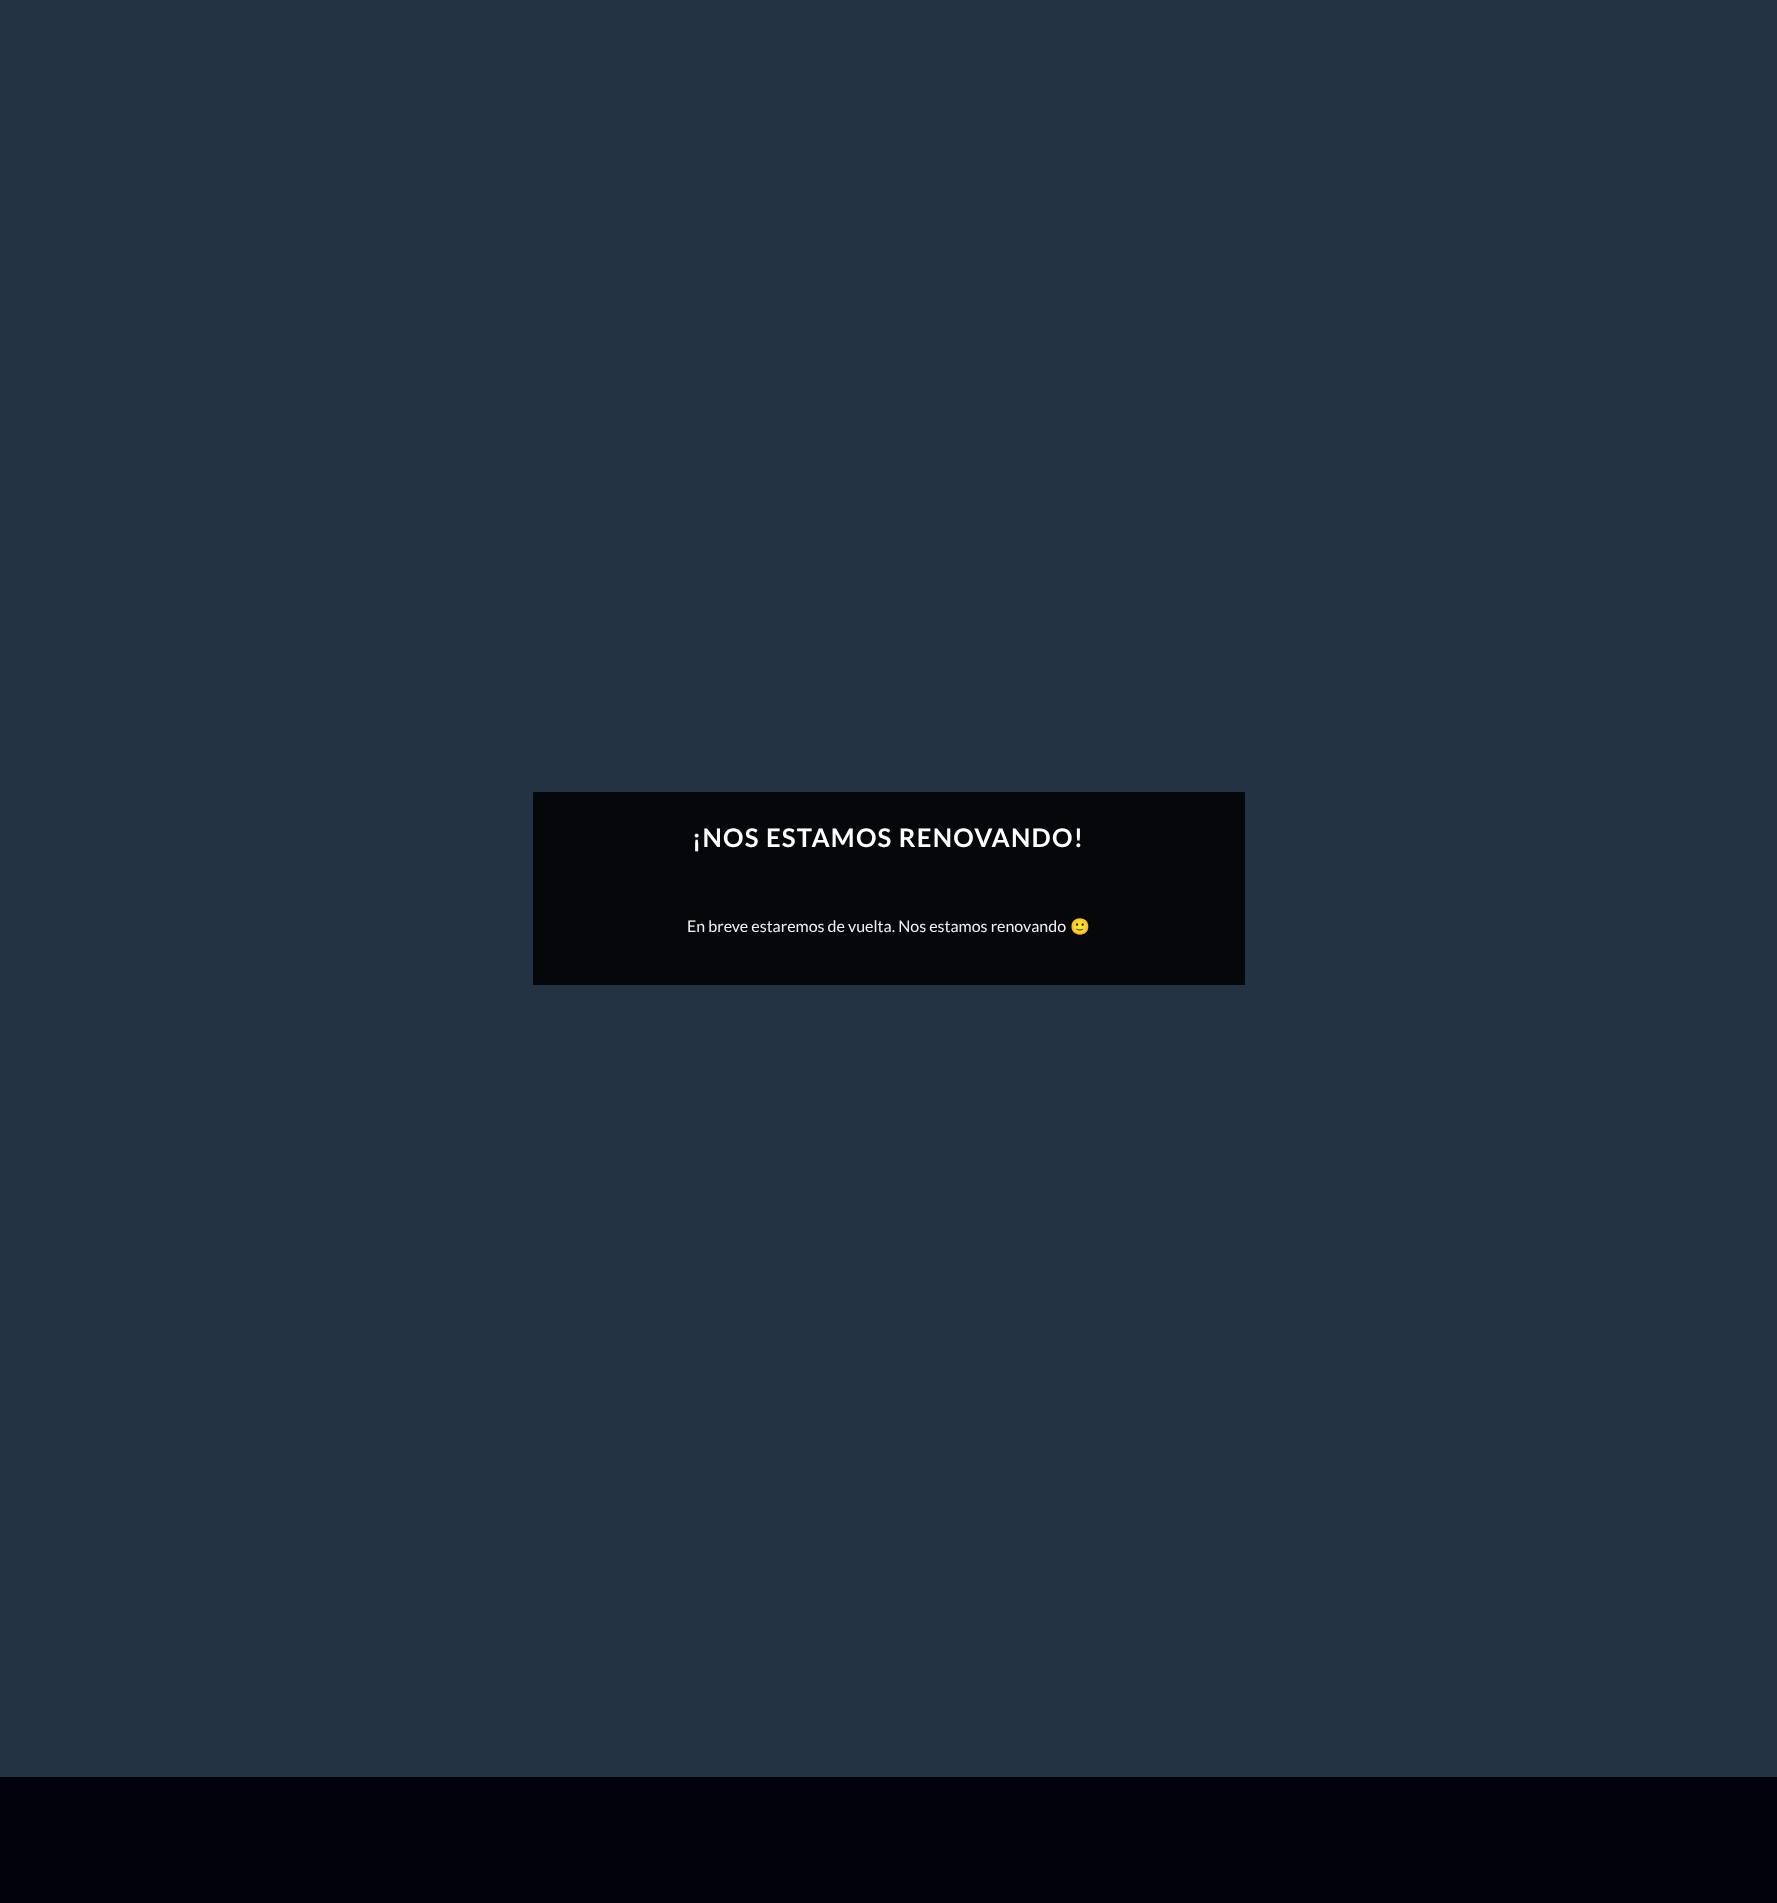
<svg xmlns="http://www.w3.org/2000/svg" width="1777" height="1903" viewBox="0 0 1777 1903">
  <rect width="100%" height="100%" fill="#02020b"/>
  <rect x="0" y="0" width="1777" height="1777" fill="#233344"/>
  <rect x="533" y="792" width="712" height="193" fill="#05070a"/>
  <text x="692" y="847" font-family="Lato" font-size="25.6" font-weight="bold" letter-spacing="1.25" fill="#ffffff">¡NOS ESTAMOS RENOVANDO!</text>
  <text x="687" y="932" font-family="Lato" font-size="16" fill="#f1f1f1">En breve estaremos de vuelta. Nos estamos renovando</text>
  <text x="1070" y="932" font-family="Noto Color Emoji" font-size="16" fill="#f1f1f1">🙂</text>
</svg>
